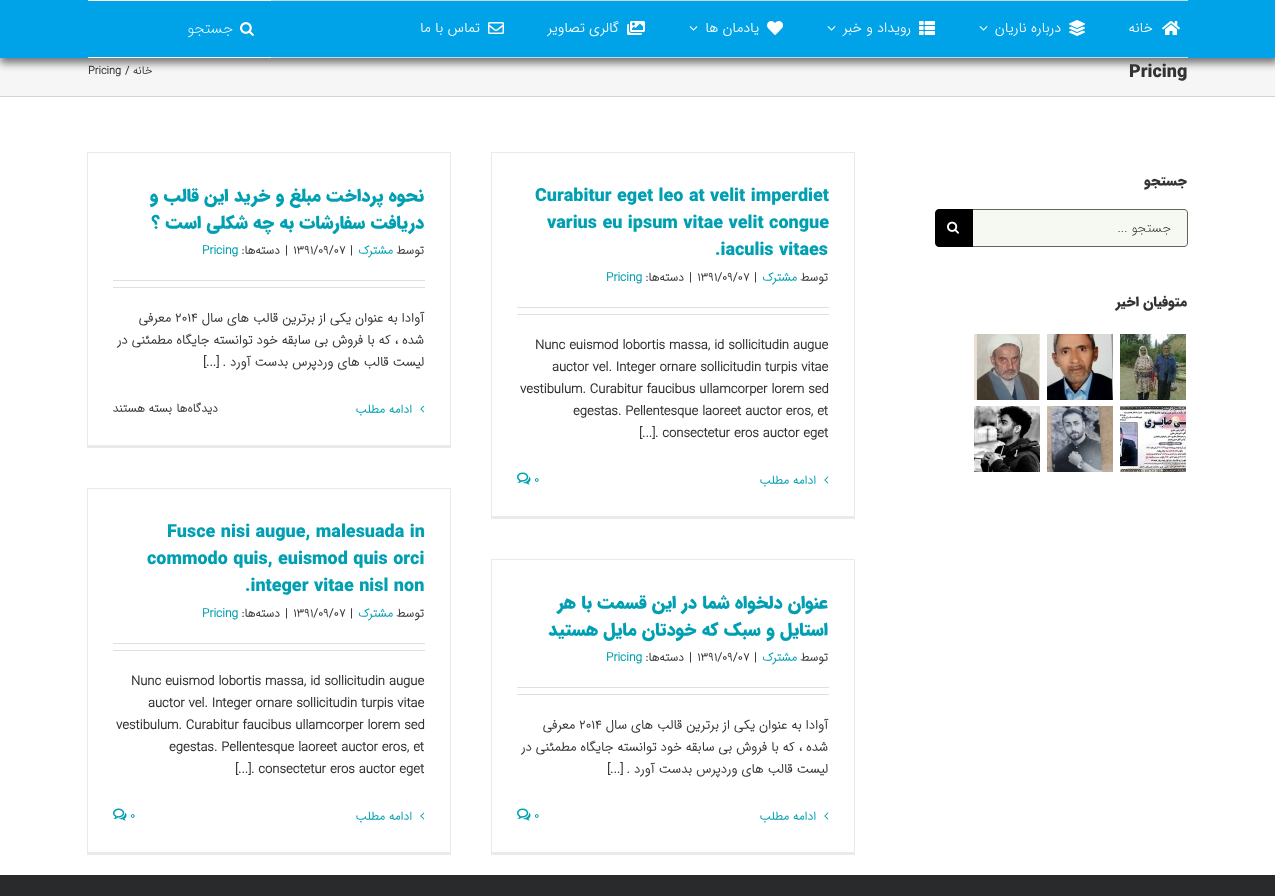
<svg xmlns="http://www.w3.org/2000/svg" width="1275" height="896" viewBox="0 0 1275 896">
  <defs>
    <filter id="blur1" x="-50%" y="-200%" width="200%" height="500%"><feGaussianBlur stdDeviation="4"/></filter>
  </defs>
  <rect width="100%" height="100%" fill="#282a2b"/>
  <rect x="0" y="97" width="1275" height="778" fill="#ffffff"/>
  <rect x="0" y="58" width="1275" height="38" fill="#f6f6f6"/>
  <rect x="0" y="1" width="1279" height="62" fill="#000000" fill-opacity="0.54" filter="url(#blur1)"/>
  <rect x="0" y="0" width="1275" height="58" fill="#00a2e8"/>
  <rect x="88" y="0" width="183" height="1" fill="#ffffff"/>
  <rect x="88" y="57" width="183" height="1" fill="#ffffff"/>
  <text x="233" y="33" font-family="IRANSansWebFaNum" font-size="15" font-weight="200" direction="rtl" fill="#ffffff">جستجو</text>
  <image x="240" y="22" width="14" height="14" href="img1.png"/>
  <rect x="271" y="0" width="917" height="1" fill="#c5dce5"/>
  <rect x="271" y="57" width="917" height="1" fill="#c5dce5"/>
  <text x="480" y="32" font-family="IRANSansWebFaNum" font-size="14" font-weight="300" direction="rtl" fill="#ffffff">تماس با ما</text>
  <image x="488" y="22" width="16" height="12" href="img2.png"/>
  <text x="619" y="32" font-family="IRANSansWebFaNum" font-size="14" font-weight="300" direction="rtl" fill="#ffffff">گالری تصاویر</text>
  <image x="627" y="21" width="18" height="14" href="img3.png"/>
  <image x="689" y="26" width="9" height="5" href="img4.png"/>
  <text x="759" y="32" font-family="IRANSansWebFaNum" font-size="14" font-weight="300" direction="rtl" fill="#ffffff">یادمان ها</text>
  <image x="767" y="21" width="16" height="14" href="img5.png"/>
  <image x="827" y="26" width="9" height="5" href="img4.png"/>
  <text x="911" y="32" font-family="IRANSansWebFaNum" font-size="14" font-weight="300" direction="rtl" fill="#ffffff">رویداد و خبر</text>
  <image x="919" y="21" width="16" height="14" href="img6.png"/>
  <image x="979" y="26" width="9" height="5" href="img4.png"/>
  <text x="1061" y="32" font-family="IRANSansWebFaNum" font-size="14" font-weight="300" direction="rtl" fill="#ffffff">درباره ناریان</text>
  <image x="1069" y="20" width="16" height="16" href="img7.png"/>
  <text x="1153" y="32" font-family="IRANSansWebFaNum" font-size="14" font-weight="300" direction="rtl" fill="#ffffff">خانه</text>
  <image x="1162" y="21" width="18" height="14" href="img8.png"/>
  <rect x="0" y="96" width="1275" height="1" fill="#d2d3d4"/>
  <text x="88" y="74" font-family="IRANSansWebFaNum" font-size="11" font-weight="bold" fill="#333333">Pricing</text>
  <text x="125" y="74" font-family="IRANSansWebFaNum" font-size="11" font-weight="bold" fill="#333333">/</text>
  <text x="152" y="74" font-family="IRANSansWebFaNum" font-size="11" font-weight="bold" direction="rtl" fill="#333333">خانه</text>
  <text x="1129" y="77" font-family="IRANSansWebFaNum" font-size="18" font-weight="900" fill="#333333">Pricing</text>
  <rect x="87" y="152" width="364" height="1" fill="#ebeaea"/>
  <rect x="450" y="152" width="1" height="296" fill="#ebeaea"/>
  <rect x="87" y="445" width="364" height="3" fill="#ebeaea"/>
  <rect x="87" y="152" width="1" height="296" fill="#ebeaea"/>
  <text x="424" y="201" font-family="IRANSansWebFaNum" font-size="18" font-weight="900" direction="rtl" fill="#00a0b2">نحوه پرداخت مبلغ و خرید این قالب و</text>
  <text x="424" y="228" font-family="IRANSansWebFaNum" font-size="18" font-weight="900" direction="rtl" fill="#00a0b2">دریافت سفارشات به چه شکلی است ؟</text>
  <text x="202" y="254" font-family="IRANSansWebFaNum" font-size="12" font-weight="bold" fill="#00a0b2">Pricing</text>
  <text x="280" y="254" font-family="IRANSansWebFaNum" font-size="12" font-weight="bold" direction="rtl" fill="#333333">دسته‌ها:</text>
  <text x="285" y="254" font-family="IRANSansWebFaNum" font-size="12" font-weight="bold" fill="#333333">|</text>
  <text x="293" y="254" font-family="IRANSansWebFaNum" font-size="12" font-weight="bold" fill="#333333">1391/09/07</text>
  <text x="350" y="254" font-family="IRANSansWebFaNum" font-size="12" font-weight="bold" fill="#333333">|</text>
  <text x="393" y="254" font-family="IRANSansWebFaNum" font-size="12" font-weight="bold" direction="rtl" fill="#00a0b2">مشترک</text>
  <text x="424" y="254" font-family="IRANSansWebFaNum" font-size="12" font-weight="bold" direction="rtl" fill="#333333">توسط</text>
  <rect x="113" y="280" width="312" height="1" fill="#e0dede"/>
  <rect x="113" y="287" width="312" height="1" fill="#e0dede"/>
  <text x="171" y="322" font-family="IRANSansWebFaNum" font-size="13" font-weight="bold" direction="rtl" fill="#333333">معرفی</text>
  <text x="175" y="322" font-family="IRANSansWebFaNum" font-size="13" font-weight="bold" fill="#333333">2014</text>
  <text x="424" y="322" font-family="IRANSansWebFaNum" font-size="13" font-weight="bold" direction="rtl" fill="#333333">آوادا به عنوان یکی از برترین قالب های سال</text>
  <text x="424" y="344" font-family="IRANSansWebFaNum" font-size="13" font-weight="bold" direction="rtl" fill="#333333">شده ، که با فروش بی سابقه خود توانسته جایگاه مطمئنی در</text>
  <text x="203" y="366" font-family="IRANSansWebFaNum" font-size="13" font-weight="bold" fill="#333333">[...]</text>
  <text x="424" y="366" font-family="IRANSansWebFaNum" font-size="13" font-weight="bold" direction="rtl" fill="#333333">لیست قالب های وردپرس بدست آورد .</text>
  <text x="172" y="412" font-family="IRANSansWebFaNum" font-size="12" font-weight="bold" direction="rtl" fill="#333333">بسته هستند</text>
  <text x="218" y="412" font-family="IRANSansWebFaNum" font-size="12" font-weight="bold" direction="rtl" fill="#333333">دیدگاه‌ها</text>
  <text x="412" y="413" font-family="IRANSansWebFaNum" font-size="12" font-weight="bold" direction="rtl" fill="#00a0b2">ادامه مطلب</text>
  <image x="420" y="405" width="5" height="8" href="img9.png"/>
  <rect x="491" y="152" width="364" height="1" fill="#ebeaea"/>
  <rect x="854" y="152" width="1" height="367" fill="#ebeaea"/>
  <rect x="491" y="516" width="364" height="3" fill="#ebeaea"/>
  <rect x="491" y="152" width="1" height="367" fill="#ebeaea"/>
  <text x="535" y="201" font-family="IRANSansWebFaNum" font-size="18" font-weight="900" fill="#00a0b2">Curabitur eget leo at velit imperdiet</text>
  <text x="547" y="228" font-family="IRANSansWebFaNum" font-size="18" font-weight="900" fill="#00a0b2">varius eu ipsum vitae velit congue</text>
  <text x="715" y="255" font-family="IRANSansWebFaNum" font-size="18" font-weight="900" fill="#00a0b2">.iaculis vitaes</text>
  <text x="606" y="281" font-family="IRANSansWebFaNum" font-size="12" font-weight="bold" fill="#00a0b2">Pricing</text>
  <text x="684" y="281" font-family="IRANSansWebFaNum" font-size="12" font-weight="bold" direction="rtl" fill="#333333">دسته‌ها:</text>
  <text x="689" y="281" font-family="IRANSansWebFaNum" font-size="12" font-weight="bold" fill="#333333">|</text>
  <text x="697" y="281" font-family="IRANSansWebFaNum" font-size="12" font-weight="bold" fill="#333333">1391/09/07</text>
  <text x="754" y="281" font-family="IRANSansWebFaNum" font-size="12" font-weight="bold" fill="#333333">|</text>
  <text x="797" y="281" font-family="IRANSansWebFaNum" font-size="12" font-weight="bold" direction="rtl" fill="#00a0b2">مشترک</text>
  <text x="828" y="281" font-family="IRANSansWebFaNum" font-size="12" font-weight="bold" direction="rtl" fill="#333333">توسط</text>
  <rect x="517" y="307" width="312" height="1" fill="#e0dede"/>
  <rect x="517" y="314" width="312" height="1" fill="#e0dede"/>
  <text x="535" y="349" font-family="IRANSansWebFaNum" font-size="13" font-weight="bold" fill="#333333">Nunc euismod lobortis massa, id sollicitudin augue</text>
  <text x="552" y="371" font-family="IRANSansWebFaNum" font-size="13" font-weight="bold" fill="#333333">auctor vel. Integer ornare sollicitudin turpis vitae</text>
  <text x="520" y="393" font-family="IRANSansWebFaNum" font-size="13" font-weight="bold" fill="#333333">vestibulum. Curabitur faucibus ullamcorper lorem sed</text>
  <text x="573" y="415" font-family="IRANSansWebFaNum" font-size="13" font-weight="bold" fill="#333333">egestas. Pellentesque laoreet auctor eros, et</text>
  <text x="639" y="437" font-family="IRANSansWebFaNum" font-size="13" font-weight="bold" fill="#333333">[...]</text>
  <text x="655" y="437" font-family="IRANSansWebFaNum" font-size="13" font-weight="bold" fill="#333333">. consectetur eros auctor eget</text>
  <image x="517" y="472" width="14" height="13" href="img10.png"/>
  <text x="534" y="483" font-family="IRANSansWebFaNum" font-size="12" font-weight="bold" fill="#00a0b2">0</text>
  <text x="816" y="484" font-family="IRANSansWebFaNum" font-size="12" font-weight="bold" direction="rtl" fill="#00a0b2">ادامه مطلب</text>
  <image x="824" y="476" width="5" height="8" href="img9.png"/>
  <rect x="87" y="488" width="364" height="1" fill="#ebeaea"/>
  <rect x="450" y="488" width="1" height="367" fill="#ebeaea"/>
  <rect x="87" y="852" width="364" height="3" fill="#ebeaea"/>
  <rect x="87" y="488" width="1" height="367" fill="#ebeaea"/>
  <text x="167" y="537" font-family="IRANSansWebFaNum" font-size="18" font-weight="900" fill="#00a0b2">Fusce nisi augue, malesuada in</text>
  <text x="147" y="564" font-family="IRANSansWebFaNum" font-size="18" font-weight="900" fill="#00a0b2">commodo quis, euismod quis orci</text>
  <text x="245" y="591" font-family="IRANSansWebFaNum" font-size="18" font-weight="900" fill="#00a0b2">.integer vitae nisl non</text>
  <text x="202" y="617" font-family="IRANSansWebFaNum" font-size="12" font-weight="bold" fill="#00a0b2">Pricing</text>
  <text x="280" y="617" font-family="IRANSansWebFaNum" font-size="12" font-weight="bold" direction="rtl" fill="#333333">دسته‌ها:</text>
  <text x="285" y="617" font-family="IRANSansWebFaNum" font-size="12" font-weight="bold" fill="#333333">|</text>
  <text x="293" y="617" font-family="IRANSansWebFaNum" font-size="12" font-weight="bold" fill="#333333">1391/09/07</text>
  <text x="350" y="617" font-family="IRANSansWebFaNum" font-size="12" font-weight="bold" fill="#333333">|</text>
  <text x="393" y="617" font-family="IRANSansWebFaNum" font-size="12" font-weight="bold" direction="rtl" fill="#00a0b2">مشترک</text>
  <text x="424" y="617" font-family="IRANSansWebFaNum" font-size="12" font-weight="bold" direction="rtl" fill="#333333">توسط</text>
  <rect x="113" y="643" width="312" height="1" fill="#e0dede"/>
  <rect x="113" y="650" width="312" height="1" fill="#e0dede"/>
  <text x="131" y="685" font-family="IRANSansWebFaNum" font-size="13" font-weight="bold" fill="#333333">Nunc euismod lobortis massa, id sollicitudin augue</text>
  <text x="148" y="707" font-family="IRANSansWebFaNum" font-size="13" font-weight="bold" fill="#333333">auctor vel. Integer ornare sollicitudin turpis vitae</text>
  <text x="116" y="729" font-family="IRANSansWebFaNum" font-size="13" font-weight="bold" fill="#333333">vestibulum. Curabitur faucibus ullamcorper lorem sed</text>
  <text x="169" y="751" font-family="IRANSansWebFaNum" font-size="13" font-weight="bold" fill="#333333">egestas. Pellentesque laoreet auctor eros, et</text>
  <text x="235" y="773" font-family="IRANSansWebFaNum" font-size="13" font-weight="bold" fill="#333333">[...]</text>
  <text x="251" y="773" font-family="IRANSansWebFaNum" font-size="13" font-weight="bold" fill="#333333">. consectetur eros auctor eget</text>
  <image x="113" y="808" width="14" height="13" href="img10.png"/>
  <text x="130" y="819" font-family="IRANSansWebFaNum" font-size="12" font-weight="bold" fill="#00a0b2">0</text>
  <text x="412" y="820" font-family="IRANSansWebFaNum" font-size="12" font-weight="bold" direction="rtl" fill="#00a0b2">ادامه مطلب</text>
  <image x="420" y="812" width="5" height="8" href="img9.png"/>
  <rect x="491" y="559" width="364" height="1" fill="#ebeaea"/>
  <rect x="854" y="559" width="1" height="296" fill="#ebeaea"/>
  <rect x="491" y="852" width="364" height="3" fill="#ebeaea"/>
  <rect x="491" y="559" width="1" height="296" fill="#ebeaea"/>
  <text x="828" y="608" font-family="IRANSansWebFaNum" font-size="18" font-weight="900" direction="rtl" fill="#00a0b2">عنوان دلخواه شما در این قسمت با هر</text>
  <text x="828" y="635" font-family="IRANSansWebFaNum" font-size="18" font-weight="900" direction="rtl" fill="#00a0b2">استایل و سبک که خودتان مایل هستید</text>
  <text x="606" y="661" font-family="IRANSansWebFaNum" font-size="12" font-weight="bold" fill="#00a0b2">Pricing</text>
  <text x="684" y="661" font-family="IRANSansWebFaNum" font-size="12" font-weight="bold" direction="rtl" fill="#333333">دسته‌ها:</text>
  <text x="689" y="661" font-family="IRANSansWebFaNum" font-size="12" font-weight="bold" fill="#333333">|</text>
  <text x="697" y="661" font-family="IRANSansWebFaNum" font-size="12" font-weight="bold" fill="#333333">1391/09/07</text>
  <text x="754" y="661" font-family="IRANSansWebFaNum" font-size="12" font-weight="bold" fill="#333333">|</text>
  <text x="797" y="661" font-family="IRANSansWebFaNum" font-size="12" font-weight="bold" direction="rtl" fill="#00a0b2">مشترک</text>
  <text x="828" y="661" font-family="IRANSansWebFaNum" font-size="12" font-weight="bold" direction="rtl" fill="#333333">توسط</text>
  <rect x="517" y="687" width="312" height="1" fill="#e0dede"/>
  <rect x="517" y="694" width="312" height="1" fill="#e0dede"/>
  <text x="575" y="729" font-family="IRANSansWebFaNum" font-size="13" font-weight="bold" direction="rtl" fill="#333333">معرفی</text>
  <text x="579" y="729" font-family="IRANSansWebFaNum" font-size="13" font-weight="bold" fill="#333333">2014</text>
  <text x="828" y="729" font-family="IRANSansWebFaNum" font-size="13" font-weight="bold" direction="rtl" fill="#333333">آوادا به عنوان یکی از برترین قالب های سال</text>
  <text x="828" y="751" font-family="IRANSansWebFaNum" font-size="13" font-weight="bold" direction="rtl" fill="#333333">شده ، که با فروش بی سابقه خود توانسته جایگاه مطمئنی در</text>
  <text x="607" y="773" font-family="IRANSansWebFaNum" font-size="13" font-weight="bold" fill="#333333">[...]</text>
  <text x="828" y="773" font-family="IRANSansWebFaNum" font-size="13" font-weight="bold" direction="rtl" fill="#333333">لیست قالب های وردپرس بدست آورد .</text>
  <image x="517" y="808" width="14" height="13" href="img10.png"/>
  <text x="534" y="819" font-family="IRANSansWebFaNum" font-size="12" font-weight="bold" fill="#00a0b2">0</text>
  <text x="816" y="820" font-family="IRANSansWebFaNum" font-size="12" font-weight="bold" direction="rtl" fill="#00a0b2">ادامه مطلب</text>
  <image x="824" y="812" width="5" height="8" href="img9.png"/>
  <text x="1187" y="185" font-family="IRANSansWebFaNum" font-size="14" font-weight="900" direction="rtl" fill="#333333">جستجو</text>
  <path d="M939 209H973V247H939C937 247 935 245 935 243V213C935 211 937 209 939 209Z" fill="#000000"/>
  <image x="947" y="221" width="12" height="13" href="img11.png"/>
  <path d="M973 209H1184C1186 209 1188 211 1188 213V243C1188 245 1186 247 1184 247H973Z" fill="#f6f9f1"/>
  <path d="M973 209H1184C1186 209 1188 211 1188 213V243C1188 245 1186 247 1184 247H973ZM973 210H1184C1186 210 1187 211 1187 213V243C1187 245 1186 246 1184 246H973Z" fill="#282828" fill-opacity="0.72" fill-rule="evenodd"/>
  <text x="1171" y="232" font-family="IRANSansWebFaNum" font-size="13" font-weight="200" direction="rtl" fill="#1c1b1b">جستجو ...</text>
  <text x="1187" y="306" font-family="IRANSansWebFaNum" font-size="14" font-weight="900" direction="rtl" fill="#333333">متوفیان اخیر</text>
  <image x="974" y="334" width="66" height="66" href="img12.png"/>
  <image x="1047" y="334" width="66" height="66" href="img13.png"/>
  <image x="1120" y="334" width="66" height="66" href="img14.png"/>
  <image x="974" y="406" width="66" height="66" href="img15.png"/>
  <image x="1047" y="406" width="66" height="66" href="img16.png"/>
  <image x="1120" y="406" width="66" height="66" href="img17.png"/>
</svg>
